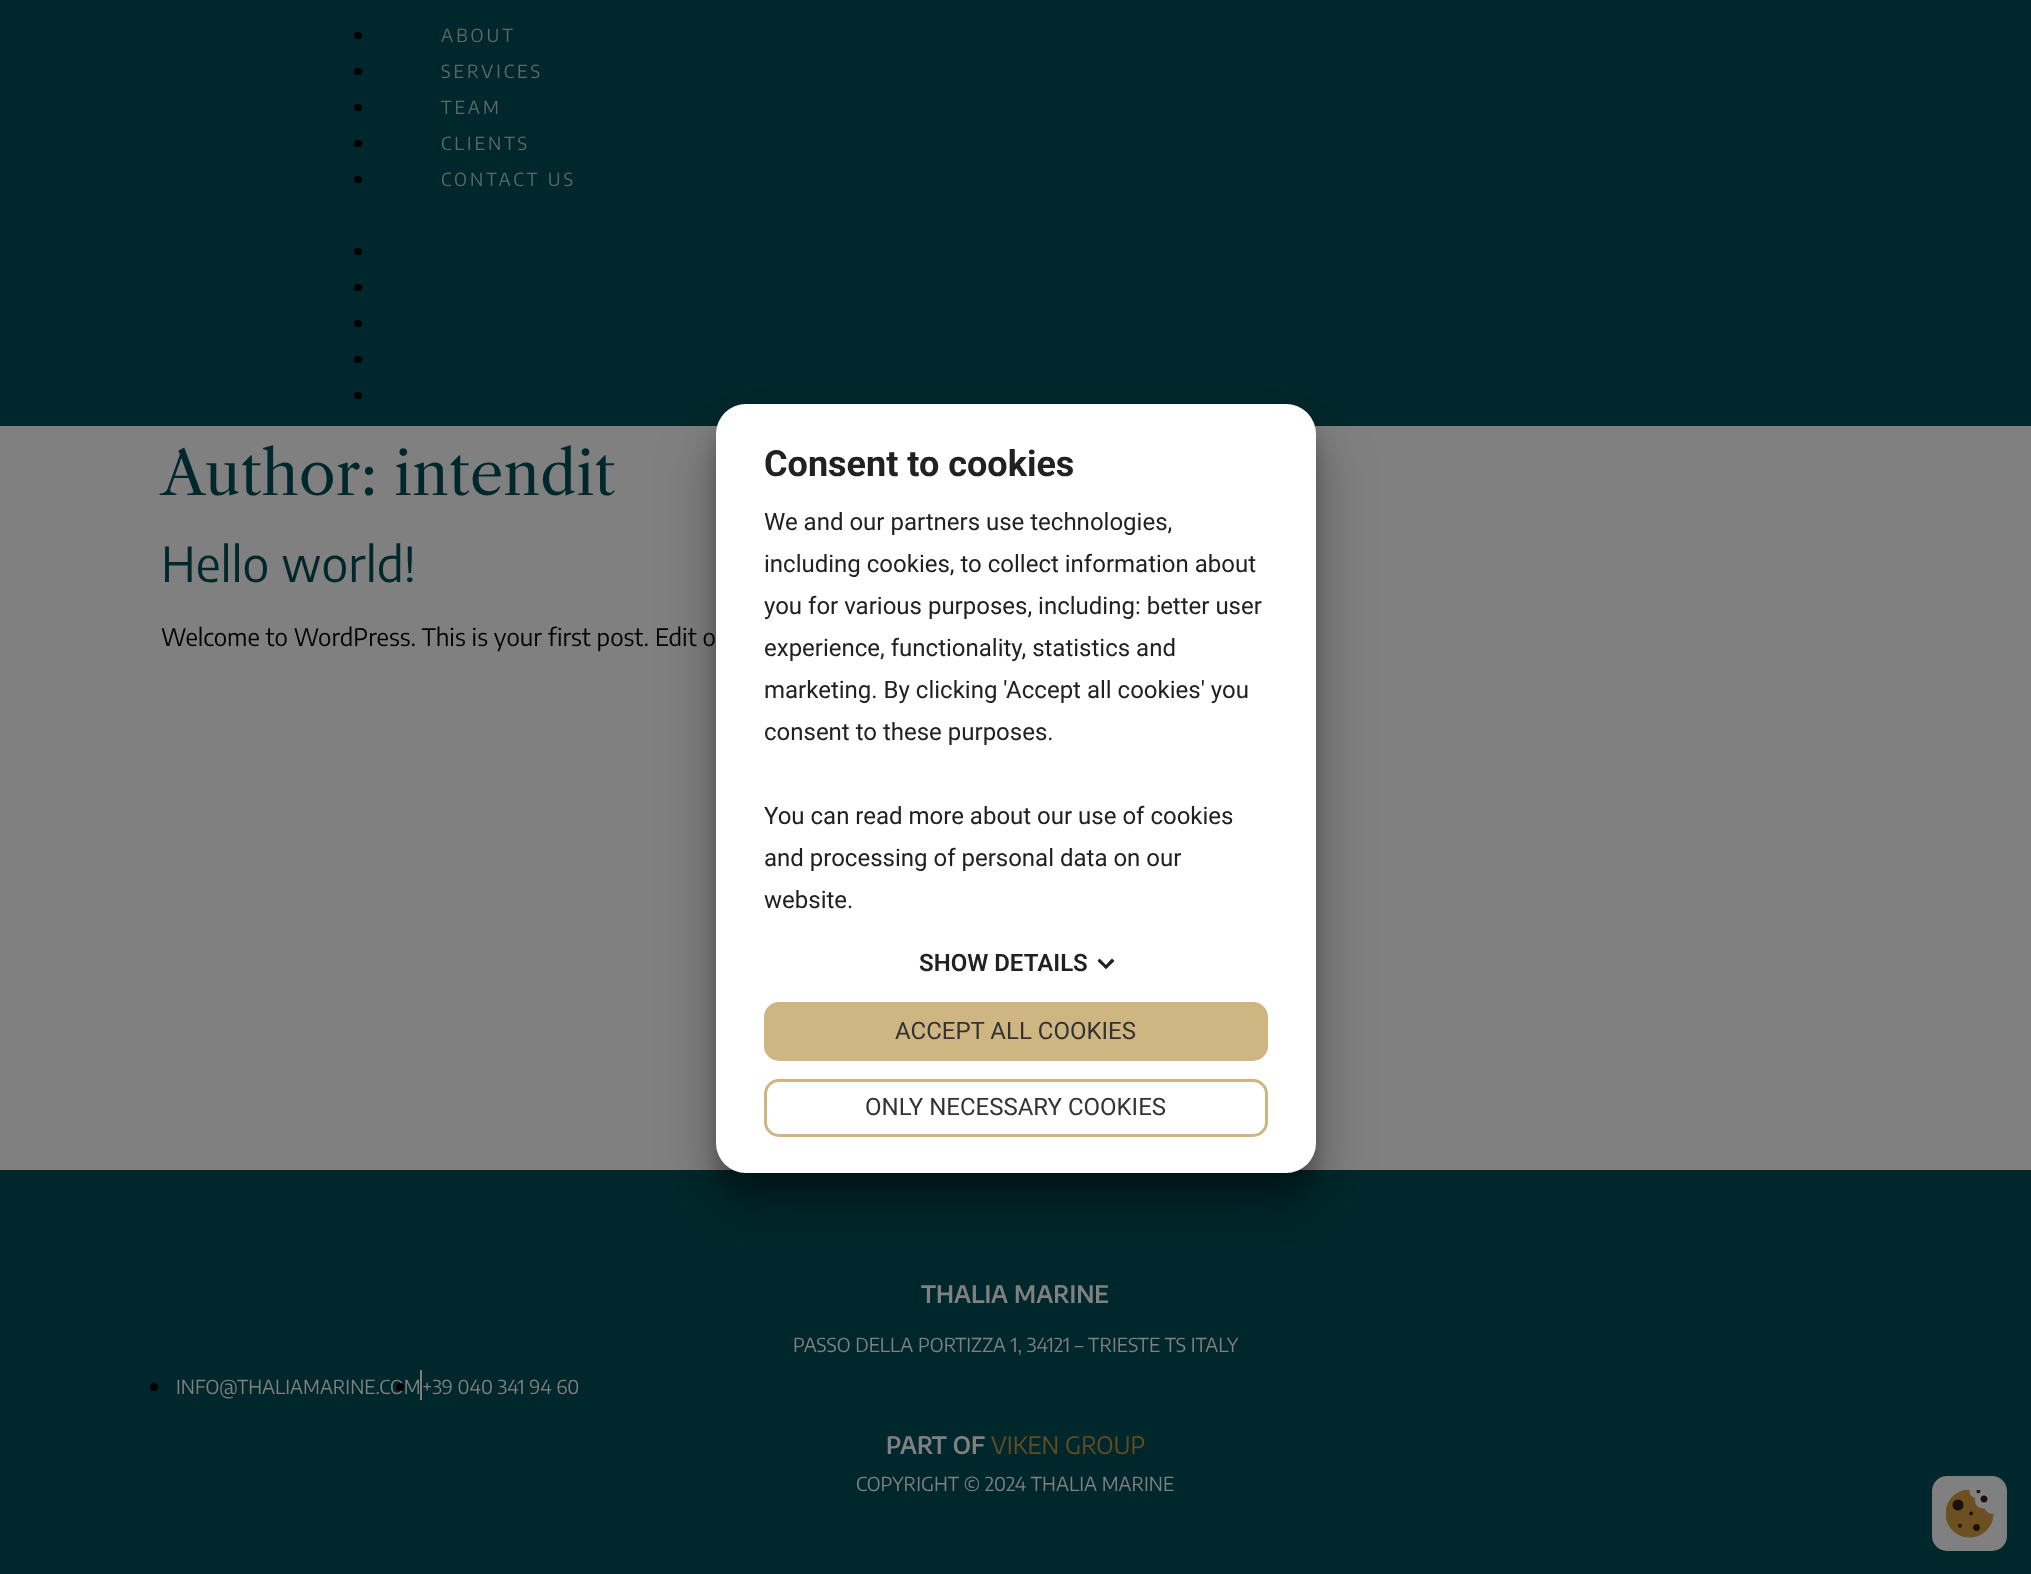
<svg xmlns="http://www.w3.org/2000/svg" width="2031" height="1574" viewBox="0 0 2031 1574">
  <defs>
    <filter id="blur1" x="-50%" y="-200%" width="200%" height="500%"><feGaussianBlur stdDeviation="9"/></filter>
    <filter id="blur2" x="-50%" y="-200%" width="200%" height="500%"><feGaussianBlur stdDeviation="28.5"/></filter>
  </defs>
  <rect width="100%" height="100%" fill="#808080"/>
  <rect x="0" y="0" width="2031" height="426" fill="#00272b"/>
  <rect x="354" y="32" width="8" height="7" rx="3.5" fill="#000000"/>
  <text x="441" y="42" font-family="Encode Sans Condensed" font-size="18" letter-spacing="3" fill="#5d6869">ABOUT</text>
  <rect x="354" y="68" width="8" height="7" rx="3.5" fill="#000000"/>
  <text x="441" y="78" font-family="Encode Sans Condensed" font-size="18" letter-spacing="3" fill="#5d6869">SERVICES</text>
  <rect x="354" y="104" width="8" height="7" rx="3.5" fill="#000000"/>
  <text x="441" y="114" font-family="Encode Sans Condensed" font-size="18" letter-spacing="3" fill="#5d6869">TEAM</text>
  <rect x="354" y="140" width="8" height="7" rx="3.5" fill="#000000"/>
  <text x="441" y="150" font-family="Encode Sans Condensed" font-size="18" letter-spacing="3" fill="#5d6869">CLIENTS</text>
  <rect x="354" y="176" width="8" height="7" rx="3.5" fill="#000000"/>
  <text x="441" y="186" font-family="Encode Sans Condensed" font-size="18" letter-spacing="3" fill="#5d6869">CONTACT US</text>
  <rect x="354" y="248" width="8" height="7" rx="3.5" fill="#000000"/>
  <rect x="354" y="284" width="8" height="7" rx="3.5" fill="#000000"/>
  <rect x="354" y="320" width="8" height="7" rx="3.5" fill="#000000"/>
  <rect x="354" y="356" width="8" height="7" rx="3.5" fill="#000000"/>
  <rect x="354" y="392" width="8" height="7" rx="3.5" fill="#000000"/>
  <text x="161" y="495" font-family="Libre Caslon Text" font-size="60" fill="#00272b">Author: intendit</text>
  <text x="161" y="582" font-family="Encode Sans Condensed" font-size="48" fill="#00272b">Hello world!</text>
  <text x="161" y="646" font-family="Encode Sans Condensed" font-size="24" fill="#000000">Welcome to WordPress. This is your first post. Edit o</text>
  <rect x="0" y="1170" width="2031" height="404" fill="#00272b"/>
  <rect x="716" y="426" width="600" height="770" rx="30" fill="#000000" fill-opacity="0.22" filter="url(#blur1)"/>
  <rect x="716" y="432" width="600" height="770" rx="30" fill="#000000" fill-opacity="0.3" filter="url(#blur2)"/>
  <rect x="716" y="404" width="600" height="769" rx="30" fill="#ffffff"/>
  <text x="764" y="476" font-family="Roboto" font-size="36" font-weight="bold" fill="#212121">Consent to cookies</text>
  <text x="764" y="530" font-family="Roboto" font-size="24" fill="#212121">We and our partners use technologies,</text>
  <text x="764" y="572" font-family="Roboto" font-size="24" fill="#212121">including cookies, to collect information about</text>
  <text x="764" y="614" font-family="Roboto" font-size="24" fill="#212121">you for various purposes, including: better user</text>
  <text x="764" y="656" font-family="Roboto" font-size="24" fill="#212121">experience, functionality, statistics and</text>
  <text x="764" y="698" font-family="Roboto" font-size="24" fill="#212121">marketing. By clicking 'Accept all cookies' you</text>
  <text x="764" y="740" font-family="Roboto" font-size="24" fill="#212121">consent to these purposes.</text>
  <text x="764" y="824" font-family="Roboto" font-size="24" fill="#212121">You can read more about our use of cookies</text>
  <text x="764" y="866" font-family="Roboto" font-size="24" fill="#212121">and processing of personal data on our</text>
  <text x="764" y="908" font-family="Roboto" font-size="24" fill="#212121">website.</text>
  <text x="919" y="971" font-family="Roboto" font-size="24" font-weight="600" fill="#212121">SHOW DETAILS</text>
  <path d="M1112 958.5L1114.5 961L1106 969L1104 967Z" fill="#212121"/>
  <path d="M1099.5 958.5L1108 967L1106 969L1097.5 961Z" fill="#212121"/>
  <rect x="765.5" y="1003.5" width="501" height="56" rx="13.5" fill="#ceb582" stroke="#ceb582" stroke-width="3"/>
  <text x="895" y="1039" font-family="Roboto" font-size="24" fill="#333333">ACCEPT ALL COOKIES</text>
  <rect x="765.5" y="1080.5" width="501" height="55" rx="13.5" fill="none" stroke="#ceb582" stroke-width="3"/>
  <text x="865" y="1115" font-family="Roboto" font-size="24" fill="#333333">ONLY NECESSARY COOKIES</text>
  <text x="921" y="1303" font-family="Encode Sans Condensed" font-size="24" font-weight="600" fill="#808080">THALIA MARINE</text>
  <text x="793" y="1352" font-family="Encode Sans Condensed" font-size="19.2" fill="#808080">PASSO DELLA PORTIZZA 1, 34121 – TRIESTE TS ITALY</text>
  <circle cx="154" cy="1387" r="4" fill="#000000"/>
  <text x="176" y="1394" font-family="Encode Sans Condensed" font-size="19.2" fill="#808080">INFO@THALIAMARINE.COM</text>
  <rect x="420" y="1370" width="2" height="30" fill="#807e7e"/>
  <circle cx="400" cy="1387" r="4" fill="#000000"/>
  <text x="422" y="1394" font-family="Encode Sans Condensed" font-size="19.2" fill="#808080">+39 040 341 94 60</text>
  <text x="886" y="1454" font-family="Encode Sans Condensed" font-size="24" font-weight="600" fill="#808080">PART OF</text>
  <text x="991" y="1454" font-family="Encode Sans Condensed" font-size="24" fill="#624e20">VIKEN GROUP</text>
  <text x="856" y="1491" font-family="Encode Sans Condensed" font-size="19.2" fill="#808080">COPYRIGHT © 2024 THALIA MARINE</text>
  <rect x="1932" y="1476" width="75" height="75" rx="15" fill="#808080"/>
  <image x="1946" y="1490" width="48" height="48" href="img1.png"/>
</svg>
